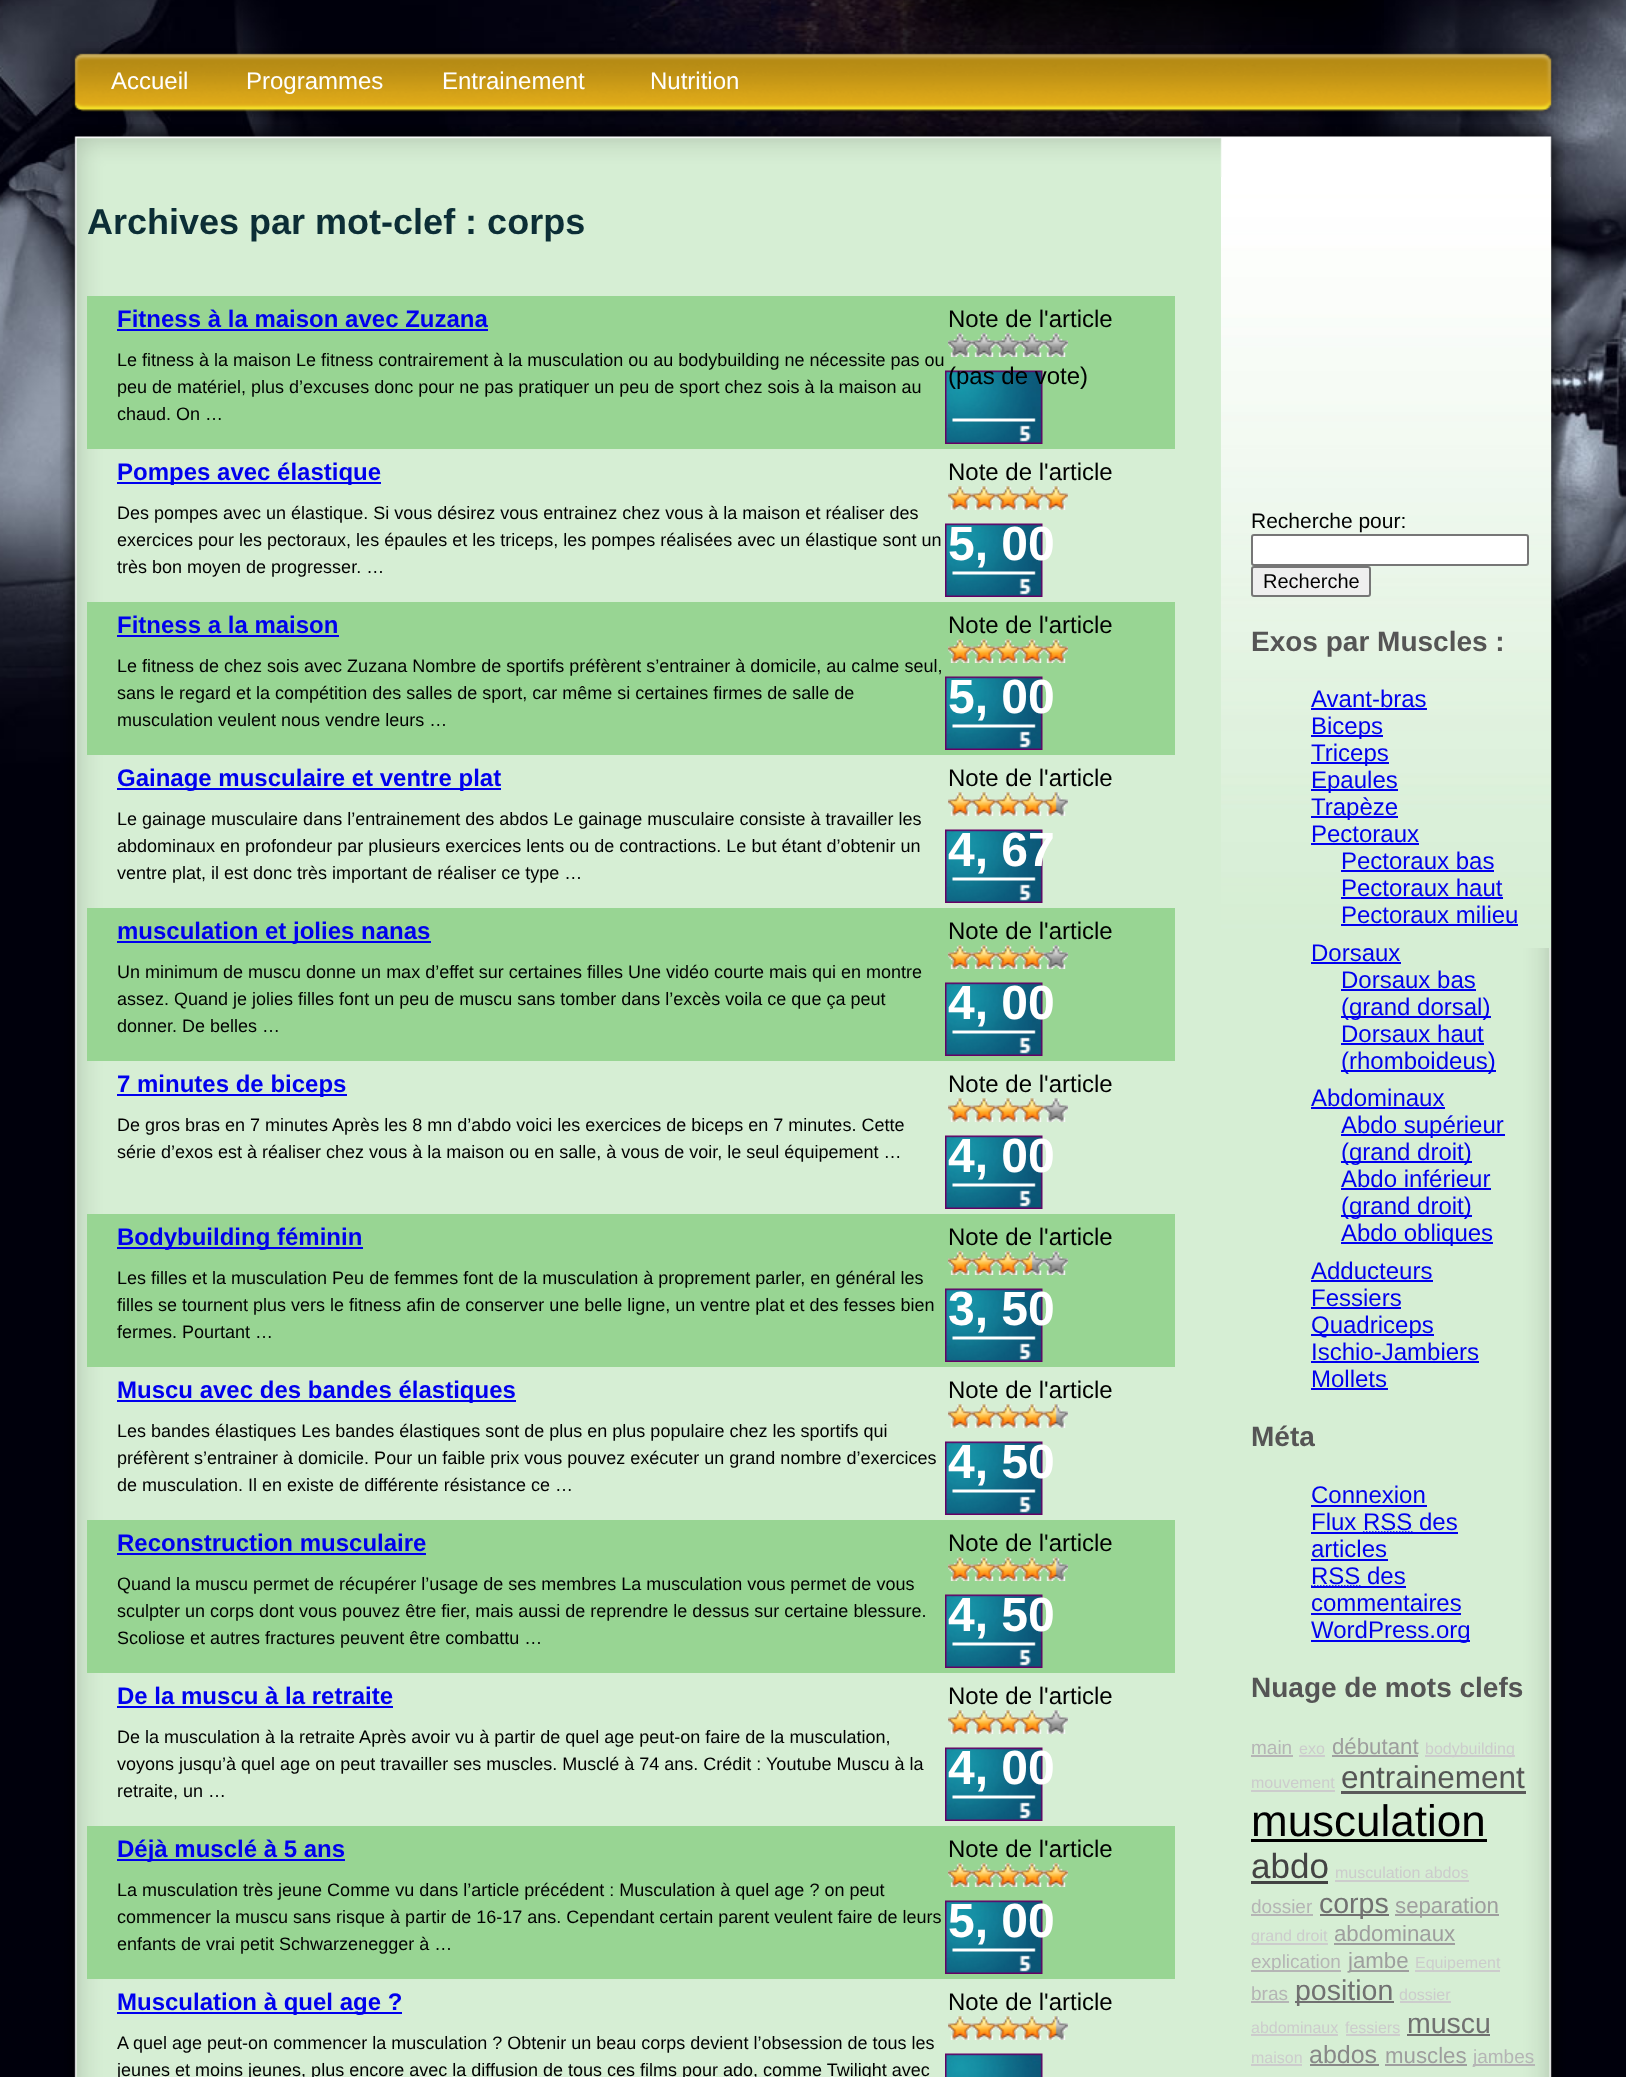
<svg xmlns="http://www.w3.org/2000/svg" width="1626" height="2077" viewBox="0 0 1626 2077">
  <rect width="100%" height="100%" fill="#00000c"/>
  <image x="0" y="0" width="1626" height="764" href="img1.png"/>
  <image x="61" y="124" width="1504" height="53" href="img2.png"/>
  <image x="904" y="0" width="480" height="45" href="img3.png"/>
  <image x="70" y="48" width="1488" height="69" href="img4.png"/>
  <text x="111" y="89" font-family="Liberation Sans" font-size="24" fill="#ffffff">Accueil</text>
  <text x="246" y="89" font-family="Liberation Sans" font-size="24" fill="#ffffff">Programmes</text>
  <text x="442" y="89" font-family="Liberation Sans" font-size="24" fill="#ffffff">Entrainement</text>
  <text x="650" y="89" font-family="Liberation Sans" font-size="24" fill="#ffffff">Nutrition</text>
  <image x="60" y="177" width="1506" height="1900" href="img5.png"/>
  <text x="87" y="234" font-family="Liberation Sans" font-size="36" font-weight="bold" fill="#0c2e36">Archives par mot-clef : corps</text>
  <rect x="87" y="296" width="1088" height="153" fill="#98d593"/>
  <text x="117" y="327" font-family="Liberation Sans" font-size="24" font-weight="bold" fill="#0000ee">Fitness à la maison avec Zuzana</text>
  <rect x="117" y="329" width="371" height="2" fill="#0000ee"/>
  <text x="117" y="366" font-family="Liberation Sans" font-size="18" fill="#000000">Le fitness à la maison Le fitness contrairement à la musculation ou au bodybuilding ne nécessite pas ou</text>
  <text x="117" y="393" font-family="Liberation Sans" font-size="18" fill="#000000">peu de matériel, plus d’excuses donc pour ne pas pratiquer un peu de sport chez sois à la maison au</text>
  <text x="117" y="420" font-family="Liberation Sans" font-size="18" fill="#000000">chaud. On …</text>
  <image x="945" y="370" width="98" height="74" href="img6.png"/>
  <text x="948" y="327" font-family="Liberation Sans" font-size="24" fill="#000000">Note de l'article</text>
  <image x="948" y="333" width="24" height="24" href="img7.png"/>
  <image x="972" y="333" width="24" height="24" href="img7.png"/>
  <image x="996" y="333" width="24" height="24" href="img7.png"/>
  <image x="1020" y="333" width="24" height="24" href="img8.png"/>
  <image x="1044" y="333" width="24" height="24" href="img9.png"/>
  <text x="948" y="384" font-family="Liberation Sans" font-size="24" fill="#000000">(pas de vote)</text>
  <rect x="117" y="482" width="264" height="2" fill="#0000ee"/>
  <text x="117" y="480" font-family="Liberation Sans" font-size="24" font-weight="bold" fill="#0000ee">Pompes avec élastique</text>
  <text x="117" y="519" font-family="Liberation Sans" font-size="18" fill="#000000">Des pompes avec un élastique. Si vous désirez vous entrainez chez vous à la maison et réaliser des</text>
  <text x="117" y="546" font-family="Liberation Sans" font-size="18" fill="#000000">exercices pour les pectoraux, les épaules et les triceps, les pompes réalisées avec un élastique sont un</text>
  <text x="117" y="573" font-family="Liberation Sans" font-size="18" fill="#000000">très bon moyen de progresser. …</text>
  <image x="945" y="523" width="98" height="74" href="img10.png"/>
  <text x="948" y="480" font-family="Liberation Sans" font-size="24" fill="#000000">Note de l'article</text>
  <image x="948" y="486" width="24" height="24" href="img11.png"/>
  <image x="972" y="486" width="24" height="24" href="img11.png"/>
  <image x="996" y="486" width="24" height="24" href="img11.png"/>
  <image x="1020" y="486" width="24" height="24" href="img12.png"/>
  <image x="1044" y="486" width="24" height="24" href="img13.png"/>
  <text x="948" y="560" font-family="Liberation Sans" font-size="48" font-weight="bold" fill="#ffffff">5, 00</text>
  <rect x="87" y="602" width="1088" height="153" fill="#98d593"/>
  <text x="117" y="633" font-family="Liberation Sans" font-size="24" font-weight="bold" fill="#0000ee">Fitness a la maison</text>
  <rect x="117" y="635" width="222" height="2" fill="#0000ee"/>
  <text x="117" y="672" font-family="Liberation Sans" font-size="18" fill="#000000">Le fitness de chez sois avec Zuzana Nombre de sportifs préfèrent s’entrainer à domicile, au calme seul,</text>
  <text x="117" y="699" font-family="Liberation Sans" font-size="18" fill="#000000">sans le regard et la compétition des salles de sport, car même si certaines firmes de salle de</text>
  <text x="117" y="726" font-family="Liberation Sans" font-size="18" fill="#000000">musculation veulent nous vendre leurs …</text>
  <image x="945" y="676" width="98" height="74" href="img6.png"/>
  <text x="948" y="633" font-family="Liberation Sans" font-size="24" fill="#000000">Note de l'article</text>
  <image x="948" y="639" width="24" height="24" href="img14.png"/>
  <image x="972" y="639" width="24" height="24" href="img14.png"/>
  <image x="996" y="639" width="24" height="24" href="img14.png"/>
  <image x="1020" y="639" width="24" height="24" href="img15.png"/>
  <image x="1044" y="639" width="24" height="24" href="img16.png"/>
  <text x="948" y="713" font-family="Liberation Sans" font-size="48" font-weight="bold" fill="#ffffff">5, 00</text>
  <rect x="117" y="788" width="384" height="2" fill="#0000ee"/>
  <text x="117" y="786" font-family="Liberation Sans" font-size="24" font-weight="bold" fill="#0000ee">Gainage musculaire et ventre plat</text>
  <text x="117" y="825" font-family="Liberation Sans" font-size="18" fill="#000000">Le gainage musculaire dans l’entrainement des abdos Le gainage musculaire consiste à travailler les</text>
  <text x="117" y="852" font-family="Liberation Sans" font-size="18" fill="#000000">abdominaux en profondeur par plusieurs exercices lents ou de contractions. Le but étant d’obtenir un</text>
  <text x="117" y="879" font-family="Liberation Sans" font-size="18" fill="#000000">ventre plat, il est donc très important de réaliser ce type …</text>
  <image x="945" y="829" width="98" height="74" href="img10.png"/>
  <text x="948" y="786" font-family="Liberation Sans" font-size="24" fill="#000000">Note de l'article</text>
  <image x="948" y="792" width="24" height="24" href="img11.png"/>
  <image x="972" y="792" width="24" height="24" href="img11.png"/>
  <image x="996" y="792" width="24" height="24" href="img11.png"/>
  <image x="1020" y="792" width="24" height="24" href="img12.png"/>
  <image x="1044" y="792" width="24" height="24" href="img17.png"/>
  <text x="948" y="866" font-family="Liberation Sans" font-size="48" font-weight="bold" fill="#ffffff">4, 67</text>
  <rect x="87" y="908" width="1088" height="153" fill="#98d593"/>
  <rect x="117" y="941" width="314" height="2" fill="#0000ee"/>
  <text x="117" y="939" font-family="Liberation Sans" font-size="24" font-weight="bold" fill="#0000ee">musculation et jolies nanas</text>
  <text x="117" y="978" font-family="Liberation Sans" font-size="18" fill="#000000">Un minimum de muscu donne un max d’effet sur certaines filles Une vidéo courte mais qui en montre</text>
  <text x="117" y="1005" font-family="Liberation Sans" font-size="18" fill="#000000">assez. Quand je jolies filles font un peu de muscu sans tomber dans l’excès voila ce que ça peut</text>
  <text x="117" y="1032" font-family="Liberation Sans" font-size="18" fill="#000000">donner. De belles …</text>
  <image x="945" y="982" width="98" height="74" href="img6.png"/>
  <text x="948" y="939" font-family="Liberation Sans" font-size="24" fill="#000000">Note de l'article</text>
  <image x="948" y="945" width="24" height="24" href="img14.png"/>
  <image x="972" y="945" width="24" height="24" href="img14.png"/>
  <image x="996" y="945" width="24" height="24" href="img14.png"/>
  <image x="1020" y="945" width="24" height="24" href="img15.png"/>
  <image x="1044" y="945" width="24" height="24" href="img9.png"/>
  <text x="948" y="1019" font-family="Liberation Sans" font-size="48" font-weight="bold" fill="#ffffff">4, 00</text>
  <rect x="117" y="1094" width="230" height="2" fill="#0000ee"/>
  <text x="117" y="1092" font-family="Liberation Sans" font-size="24" font-weight="bold" fill="#0000ee">7 minutes de biceps</text>
  <text x="117" y="1131" font-family="Liberation Sans" font-size="18" fill="#000000">De gros bras en 7 minutes Après les 8 mn d’abdo voici les exercices de biceps en 7 minutes. Cette</text>
  <text x="117" y="1158" font-family="Liberation Sans" font-size="18" fill="#000000">série d’exos est à réaliser chez vous à la maison ou en salle, à vous de voir, le seul équipement …</text>
  <image x="945" y="1135" width="98" height="74" href="img10.png"/>
  <text x="948" y="1092" font-family="Liberation Sans" font-size="24" fill="#000000">Note de l'article</text>
  <image x="948" y="1098" width="24" height="24" href="img11.png"/>
  <image x="972" y="1098" width="24" height="24" href="img11.png"/>
  <image x="996" y="1098" width="24" height="24" href="img11.png"/>
  <image x="1020" y="1098" width="24" height="24" href="img12.png"/>
  <image x="1044" y="1098" width="24" height="24" href="img18.png"/>
  <text x="948" y="1172" font-family="Liberation Sans" font-size="48" font-weight="bold" fill="#ffffff">4, 00</text>
  <rect x="87" y="1214" width="1088" height="153" fill="#98d593"/>
  <rect x="117" y="1247" width="246" height="2" fill="#0000ee"/>
  <text x="117" y="1245" font-family="Liberation Sans" font-size="24" font-weight="bold" fill="#0000ee">Bodybuilding féminin</text>
  <text x="117" y="1284" font-family="Liberation Sans" font-size="18" fill="#000000">Les filles et la musculation Peu de femmes font de la musculation à proprement parler, en général les</text>
  <text x="117" y="1311" font-family="Liberation Sans" font-size="18" fill="#000000">filles se tournent plus vers le fitness afin de conserver une belle ligne, un ventre plat et des fesses bien</text>
  <text x="117" y="1338" font-family="Liberation Sans" font-size="18" fill="#000000">fermes. Pourtant …</text>
  <image x="945" y="1288" width="98" height="74" href="img6.png"/>
  <text x="948" y="1245" font-family="Liberation Sans" font-size="24" fill="#000000">Note de l'article</text>
  <image x="948" y="1251" width="24" height="24" href="img14.png"/>
  <image x="972" y="1251" width="24" height="24" href="img14.png"/>
  <image x="996" y="1251" width="24" height="24" href="img14.png"/>
  <image x="1020" y="1251" width="24" height="24" href="img19.png"/>
  <image x="1044" y="1251" width="24" height="24" href="img9.png"/>
  <text x="948" y="1325" font-family="Liberation Sans" font-size="48" font-weight="bold" fill="#ffffff">3, 50</text>
  <rect x="117" y="1400" width="399" height="2" fill="#0000ee"/>
  <text x="117" y="1398" font-family="Liberation Sans" font-size="24" font-weight="bold" fill="#0000ee">Muscu avec des bandes élastiques</text>
  <text x="117" y="1437" font-family="Liberation Sans" font-size="18" fill="#000000">Les bandes élastiques Les bandes élastiques sont de plus en plus populaire chez les sportifs qui</text>
  <text x="117" y="1464" font-family="Liberation Sans" font-size="18" fill="#000000">préfèrent s’entrainer à domicile. Pour un faible prix vous pouvez exécuter un grand nombre d’exercices</text>
  <text x="117" y="1491" font-family="Liberation Sans" font-size="18" fill="#000000">de musculation. Il en existe de différente résistance ce …</text>
  <image x="945" y="1441" width="98" height="74" href="img10.png"/>
  <text x="948" y="1398" font-family="Liberation Sans" font-size="24" fill="#000000">Note de l'article</text>
  <image x="948" y="1404" width="24" height="24" href="img11.png"/>
  <image x="972" y="1404" width="24" height="24" href="img11.png"/>
  <image x="996" y="1404" width="24" height="24" href="img11.png"/>
  <image x="1020" y="1404" width="24" height="24" href="img12.png"/>
  <image x="1044" y="1404" width="24" height="24" href="img17.png"/>
  <text x="948" y="1478" font-family="Liberation Sans" font-size="48" font-weight="bold" fill="#ffffff">4, 50</text>
  <rect x="87" y="1520" width="1088" height="153" fill="#98d593"/>
  <text x="117" y="1551" font-family="Liberation Sans" font-size="24" font-weight="bold" fill="#0000ee">Reconstruction musculaire</text>
  <rect x="117" y="1553" width="309" height="2" fill="#0000ee"/>
  <text x="117" y="1590" font-family="Liberation Sans" font-size="18" fill="#000000">Quand la muscu permet de récupérer l’usage de ses membres La musculation vous permet de vous</text>
  <text x="117" y="1617" font-family="Liberation Sans" font-size="18" fill="#000000">sculpter un corps dont vous pouvez être fier, mais aussi de reprendre le dessus sur certaine blessure.</text>
  <text x="117" y="1644" font-family="Liberation Sans" font-size="18" fill="#000000">Scoliose et autres fractures peuvent être combattu …</text>
  <image x="945" y="1594" width="98" height="74" href="img6.png"/>
  <text x="948" y="1551" font-family="Liberation Sans" font-size="24" fill="#000000">Note de l'article</text>
  <image x="948" y="1557" width="24" height="24" href="img14.png"/>
  <image x="972" y="1557" width="24" height="24" href="img14.png"/>
  <image x="996" y="1557" width="24" height="24" href="img14.png"/>
  <image x="1020" y="1557" width="24" height="24" href="img15.png"/>
  <image x="1044" y="1557" width="24" height="24" href="img20.png"/>
  <text x="948" y="1631" font-family="Liberation Sans" font-size="48" font-weight="bold" fill="#ffffff">4, 50</text>
  <text x="117" y="1704" font-family="Liberation Sans" font-size="24" font-weight="bold" fill="#0000ee">De la muscu à la retraite</text>
  <rect x="117" y="1706" width="276" height="2" fill="#0000ee"/>
  <text x="117" y="1743" font-family="Liberation Sans" font-size="18" fill="#000000">De la musculation à la retraite Après avoir vu à partir de quel age peut-on faire de la musculation,</text>
  <text x="117" y="1770" font-family="Liberation Sans" font-size="18" fill="#000000">voyons jusqu’à quel age on peut travailler ses muscles. Musclé à 74 ans. Crédit : Youtube Muscu à la</text>
  <text x="117" y="1797" font-family="Liberation Sans" font-size="18" fill="#000000">retraite, un …</text>
  <image x="945" y="1747" width="98" height="74" href="img10.png"/>
  <text x="948" y="1704" font-family="Liberation Sans" font-size="24" fill="#000000">Note de l'article</text>
  <image x="948" y="1710" width="24" height="24" href="img11.png"/>
  <image x="972" y="1710" width="24" height="24" href="img11.png"/>
  <image x="996" y="1710" width="24" height="24" href="img11.png"/>
  <image x="1020" y="1710" width="24" height="24" href="img12.png"/>
  <image x="1044" y="1710" width="24" height="24" href="img18.png"/>
  <text x="948" y="1784" font-family="Liberation Sans" font-size="48" font-weight="bold" fill="#ffffff">4, 00</text>
  <rect x="87" y="1826" width="1088" height="153" fill="#98d593"/>
  <rect x="117" y="1859" width="228" height="2" fill="#0000ee"/>
  <text x="117" y="1857" font-family="Liberation Sans" font-size="24" font-weight="bold" fill="#0000ee">Déjà musclé à 5 ans</text>
  <text x="117" y="1896" font-family="Liberation Sans" font-size="18" fill="#000000">La musculation très jeune Comme vu dans l’article précédent : Musculation à quel age ? on peut</text>
  <text x="117" y="1923" font-family="Liberation Sans" font-size="18" fill="#000000">commencer la muscu sans risque à partir de 16-17 ans. Cependant certain parent veulent faire de leurs</text>
  <text x="117" y="1950" font-family="Liberation Sans" font-size="18" fill="#000000">enfants de vrai petit Schwarzenegger à …</text>
  <image x="945" y="1900" width="98" height="74" href="img6.png"/>
  <text x="948" y="1857" font-family="Liberation Sans" font-size="24" fill="#000000">Note de l'article</text>
  <image x="948" y="1863" width="24" height="24" href="img14.png"/>
  <image x="972" y="1863" width="24" height="24" href="img14.png"/>
  <image x="996" y="1863" width="24" height="24" href="img14.png"/>
  <image x="1020" y="1863" width="24" height="24" href="img15.png"/>
  <image x="1044" y="1863" width="24" height="24" href="img16.png"/>
  <text x="948" y="1937" font-family="Liberation Sans" font-size="48" font-weight="bold" fill="#ffffff">5, 00</text>
  <rect x="117" y="2012" width="285" height="2" fill="#0000ee"/>
  <text x="117" y="2010" font-family="Liberation Sans" font-size="24" font-weight="bold" fill="#0000ee">Musculation à quel age ?</text>
  <text x="117" y="2049" font-family="Liberation Sans" font-size="18" fill="#000000">A quel age peut-on commencer la musculation ? Obtenir un beau corps devient l’obsession de tous les</text>
  <text x="117" y="2076" font-family="Liberation Sans" font-size="18" fill="#000000">jeunes et moins jeunes, plus encore avec la diffusion de tous ces films pour ado, comme Twilight avec</text>
  <image x="945" y="2053" width="98" height="24" href="img21.png"/>
  <text x="948" y="2010" font-family="Liberation Sans" font-size="24" fill="#000000">Note de l'article</text>
  <image x="948" y="2016" width="24" height="24" href="img11.png"/>
  <image x="972" y="2016" width="24" height="24" href="img11.png"/>
  <image x="996" y="2016" width="24" height="24" href="img11.png"/>
  <image x="1020" y="2016" width="24" height="24" href="img12.png"/>
  <image x="1044" y="2016" width="24" height="24" href="img17.png"/>
  <image x="1221" y="177" width="330" height="771" href="img22.png"/>
  <text x="1251" y="528" font-family="Liberation Sans" font-size="21" fill="#000000">Recherche pour:</text>
  <rect x="1252" y="535" width="276" height="30" rx="2" fill="#ffffff" stroke="#767676" stroke-width="2"/>
  <rect x="1252" y="567" width="118" height="29" rx="2" fill="#efefef" stroke="#767676" stroke-width="2"/>
  <text x="1263" y="588" font-family="Liberation Sans" font-size="20" fill="#000000">Recherche</text>
  <text x="1251" y="651" font-family="Liberation Sans" font-size="28" font-weight="bold" fill="#555555">Exos par Muscles :</text>
  <text x="1311" y="707" font-family="Liberation Sans" font-size="24" fill="#0000ee">Avant-bras</text>
  <rect x="1311" y="708" width="116" height="2" fill="#0000ee"/>
  <rect x="1311" y="735" width="72" height="2" fill="#0000ee"/>
  <text x="1311" y="734" font-family="Liberation Sans" font-size="24" fill="#0000ee">Biceps</text>
  <rect x="1311" y="762" width="78" height="2" fill="#0000ee"/>
  <text x="1311" y="761" font-family="Liberation Sans" font-size="24" fill="#0000ee">Triceps</text>
  <rect x="1311" y="789" width="87" height="2" fill="#0000ee"/>
  <text x="1311" y="788" font-family="Liberation Sans" font-size="24" fill="#0000ee">Epaules</text>
  <rect x="1311" y="816" width="87" height="2" fill="#0000ee"/>
  <text x="1311" y="815" font-family="Liberation Sans" font-size="24" fill="#0000ee">Trapèze</text>
  <text x="1311" y="842" font-family="Liberation Sans" font-size="24" fill="#0000ee">Pectoraux</text>
  <rect x="1311" y="843" width="108" height="2" fill="#0000ee"/>
  <text x="1341" y="869" font-family="Liberation Sans" font-size="24" fill="#0000ee">Pectoraux bas</text>
  <rect x="1341" y="870" width="153" height="2" fill="#0000ee"/>
  <text x="1341" y="896" font-family="Liberation Sans" font-size="24" fill="#0000ee">Pectoraux haut</text>
  <rect x="1341" y="897" width="162" height="2" fill="#0000ee"/>
  <text x="1341" y="923" font-family="Liberation Sans" font-size="24" fill="#0000ee">Pectoraux milieu</text>
  <rect x="1341" y="924" width="177" height="2" fill="#0000ee"/>
  <text x="1311" y="961" font-family="Liberation Sans" font-size="24" fill="#0000ee">Dorsaux</text>
  <rect x="1311" y="962" width="90" height="2" fill="#0000ee"/>
  <text x="1341" y="988" font-family="Liberation Sans" font-size="24" fill="#0000ee">Dorsaux bas</text>
  <rect x="1341" y="989" width="135" height="2" fill="#0000ee"/>
  <rect x="1341" y="1016" width="150" height="2" fill="#0000ee"/>
  <text x="1341" y="1015" font-family="Liberation Sans" font-size="24" fill="#0000ee">(grand dorsal)</text>
  <text x="1341" y="1042" font-family="Liberation Sans" font-size="24" fill="#0000ee">Dorsaux haut</text>
  <rect x="1341" y="1043" width="143" height="2" fill="#0000ee"/>
  <rect x="1341" y="1070" width="155" height="2" fill="#0000ee"/>
  <text x="1341" y="1069" font-family="Liberation Sans" font-size="24" fill="#0000ee">(rhomboideus)</text>
  <text x="1311" y="1106" font-family="Liberation Sans" font-size="24" fill="#0000ee">Abdominaux</text>
  <rect x="1311" y="1107" width="134" height="2" fill="#0000ee"/>
  <rect x="1341" y="1134" width="164" height="2" fill="#0000ee"/>
  <text x="1341" y="1133" font-family="Liberation Sans" font-size="24" fill="#0000ee">Abdo supérieur</text>
  <rect x="1341" y="1161" width="131" height="2" fill="#0000ee"/>
  <text x="1341" y="1160" font-family="Liberation Sans" font-size="24" fill="#0000ee">(grand droit)</text>
  <text x="1341" y="1187" font-family="Liberation Sans" font-size="24" fill="#0000ee">Abdo inférieur</text>
  <rect x="1341" y="1188" width="150" height="2" fill="#0000ee"/>
  <rect x="1341" y="1215" width="131" height="2" fill="#0000ee"/>
  <text x="1341" y="1214" font-family="Liberation Sans" font-size="24" fill="#0000ee">(grand droit)</text>
  <rect x="1341" y="1242" width="152" height="2" fill="#0000ee"/>
  <text x="1341" y="1241" font-family="Liberation Sans" font-size="24" fill="#0000ee">Abdo obliques</text>
  <text x="1311" y="1279" font-family="Liberation Sans" font-size="24" fill="#0000ee">Adducteurs</text>
  <rect x="1311" y="1280" width="122" height="2" fill="#0000ee"/>
  <text x="1311" y="1306" font-family="Liberation Sans" font-size="24" fill="#0000ee">Fessiers</text>
  <rect x="1311" y="1307" width="90" height="2" fill="#0000ee"/>
  <rect x="1311" y="1334" width="123" height="2" fill="#0000ee"/>
  <text x="1311" y="1333" font-family="Liberation Sans" font-size="24" fill="#0000ee">Quadriceps</text>
  <text x="1311" y="1360" font-family="Liberation Sans" font-size="24" fill="#0000ee">Ischio-Jambiers</text>
  <rect x="1311" y="1361" width="168" height="2" fill="#0000ee"/>
  <text x="1311" y="1387" font-family="Liberation Sans" font-size="24" fill="#0000ee">Mollets</text>
  <rect x="1311" y="1388" width="77" height="2" fill="#0000ee"/>
  <text x="1251" y="1446" font-family="Liberation Sans" font-size="28" font-weight="bold" fill="#555555">Méta</text>
  <text x="1311" y="1503" font-family="Liberation Sans" font-size="24" fill="#0000ee">Connexion</text>
  <rect x="1311" y="1505" width="116" height="2" fill="#0000ee"/>
  <text x="1311" y="1530" font-family="Liberation Sans" font-size="24" fill="#0000ee">Flux RSS des</text>
  <rect x="1311" y="1532" width="53" height="2" fill="#0000ee"/>
  <path d="M1363 1532H1412.5" fill="none" stroke="#0000ee" stroke-width="1.5" stroke-dasharray="1.5 1.5"/>
  <rect x="1364" y="1532" width="94" height="2" fill="#0000ee"/>
  <text x="1311" y="1557" font-family="Liberation Sans" font-size="24" fill="#0000ee">articles</text>
  <rect x="1311" y="1559" width="77" height="2" fill="#0000ee"/>
  <text x="1311" y="1584" font-family="Liberation Sans" font-size="24" fill="#0000ee">RSS des</text>
  <path d="M1311 1586H1360.5" fill="none" stroke="#0000ee" stroke-width="1.5" stroke-dasharray="1.5 1.5"/>
  <rect x="1311" y="1586" width="95" height="2" fill="#0000ee"/>
  <text x="1311" y="1611" font-family="Liberation Sans" font-size="24" fill="#0000ee">commentaires</text>
  <rect x="1311" y="1613" width="150" height="2" fill="#0000ee"/>
  <rect x="1311" y="1640" width="159" height="2" fill="#0000ee"/>
  <text x="1311" y="1638" font-family="Liberation Sans" font-size="24" fill="#0000ee">WordPress.org</text>
  <text x="1251" y="1697" font-family="Liberation Sans" font-size="28" font-weight="bold" fill="#555555">Nuage de mots clefs</text>
  <text x="1251" y="1754" font-family="Liberation Sans" font-size="19" fill="#b5b5b5">main</text>
  <rect x="1251" y="1755" width="42" height="2" fill="#b5b5b5"/>
  <text x="1299" y="1754" font-family="Liberation Sans" font-size="16" fill="#cccccc">exo</text>
  <rect x="1299" y="1755" width="26" height="2" fill="#cccccc"/>
  <text x="1332" y="1754" font-family="Liberation Sans" font-size="22.25" fill="#9e9e9e">débutant</text>
  <rect x="1332" y="1755" width="86" height="2" fill="#9e9e9e"/>
  <rect x="1425" y="1755" width="90" height="2" fill="#cccccc"/>
  <text x="1425" y="1754" font-family="Liberation Sans" font-size="16" fill="#cccccc">bodybuilding</text>
  <text x="1251" y="1788" font-family="Liberation Sans" font-size="16" fill="#cccccc">mouvement</text>
  <rect x="1251" y="1790" width="84" height="2" fill="#cccccc"/>
  <text x="1341" y="1788" font-family="Liberation Sans" font-size="31.5" fill="#555555">entrainement</text>
  <rect x="1341" y="1791" width="185" height="3" fill="#5a5a5a"/>
  <text x="1251" y="1836" font-family="Liberation Sans" font-size="44" fill="#000000">musculation</text>
  <rect x="1251" y="1839" width="236" height="3" fill="#000000"/>
  <text x="1251" y="1878" font-family="Liberation Sans" font-size="35" fill="#434343">abdo</text>
  <rect x="1251" y="1881" width="77" height="3" fill="#434343"/>
  <text x="1335" y="1878" font-family="Liberation Sans" font-size="16" fill="#cccccc">musculation abdos</text>
  <rect x="1335" y="1880" width="134" height="2" fill="#cccccc"/>
  <text x="1251" y="1913" font-family="Liberation Sans" font-size="19" fill="#b5b5b5">dossier</text>
  <rect x="1251" y="1914" width="62" height="2" fill="#b5b5b5"/>
  <rect x="1320" y="1914" width="69" height="2" fill="#717171"/>
  <text x="1319" y="1913" font-family="Liberation Sans" font-size="28.5" fill="#717171">corps</text>
  <rect x="1395" y="1914" width="104" height="2" fill="#9e9e9e"/>
  <text x="1395" y="1913" font-family="Liberation Sans" font-size="22.25" fill="#9e9e9e">separation</text>
  <rect x="1251" y="1943" width="77" height="2" fill="#cccccc"/>
  <text x="1251" y="1941" font-family="Liberation Sans" font-size="16" fill="#cccccc">grand droit</text>
  <text x="1334" y="1941" font-family="Liberation Sans" font-size="22.25" fill="#9e9e9e">abdominaux</text>
  <rect x="1334" y="1943" width="121" height="2" fill="#9e9e9e"/>
  <rect x="1251" y="1970" width="90" height="2" fill="#b5b5b5"/>
  <text x="1251" y="1968" font-family="Liberation Sans" font-size="19" fill="#b5b5b5">explication</text>
  <rect x="1349" y="1970" width="60" height="2" fill="#9e9e9e"/>
  <text x="1348" y="1968" font-family="Liberation Sans" font-size="22.25" fill="#9e9e9e">jambe</text>
  <rect x="1415" y="1970" width="85" height="2" fill="#cccccc"/>
  <text x="1415" y="1968" font-family="Liberation Sans" font-size="16" fill="#cccccc">Equipement</text>
  <text x="1251" y="2000" font-family="Liberation Sans" font-size="19" fill="#b5b5b5">bras</text>
  <rect x="1251" y="2001" width="38" height="2" fill="#b5b5b5"/>
  <rect x="1295" y="2001" width="99" height="2" fill="#717171"/>
  <text x="1295" y="2000" font-family="Liberation Sans" font-size="28.5" fill="#717171">position</text>
  <text x="1399" y="2000" font-family="Liberation Sans" font-size="16" fill="#cccccc">dossier</text>
  <rect x="1400" y="2001" width="51" height="2" fill="#cccccc"/>
  <text x="1251" y="2033" font-family="Liberation Sans" font-size="16" fill="#cccccc">abdominaux</text>
  <rect x="1251" y="2034" width="87" height="2" fill="#cccccc"/>
  <text x="1345" y="2033" font-family="Liberation Sans" font-size="16" fill="#cccccc">fessiers</text>
  <rect x="1346" y="2034" width="54" height="2" fill="#cccccc"/>
  <text x="1407" y="2033" font-family="Liberation Sans" font-size="28.5" fill="#717171">muscu</text>
  <rect x="1407" y="2034" width="83" height="2" fill="#717171"/>
  <text x="1251" y="2063" font-family="Liberation Sans" font-size="16" fill="#cccccc">maison</text>
  <rect x="1251" y="2064" width="51" height="2" fill="#cccccc"/>
  <text x="1309" y="2063" font-family="Liberation Sans" font-size="25" fill="#888888">abdos</text>
  <rect x="1310" y="2064" width="69" height="2" fill="#888888"/>
  <text x="1385" y="2063" font-family="Liberation Sans" font-size="22.25" fill="#9e9e9e">muscles</text>
  <rect x="1385" y="2064" width="82" height="2" fill="#9e9e9e"/>
  <rect x="1473" y="2064" width="62" height="2" fill="#b5b5b5"/>
  <text x="1473" y="2063" font-family="Liberation Sans" font-size="19" fill="#b5b5b5">jambes</text>
</svg>
